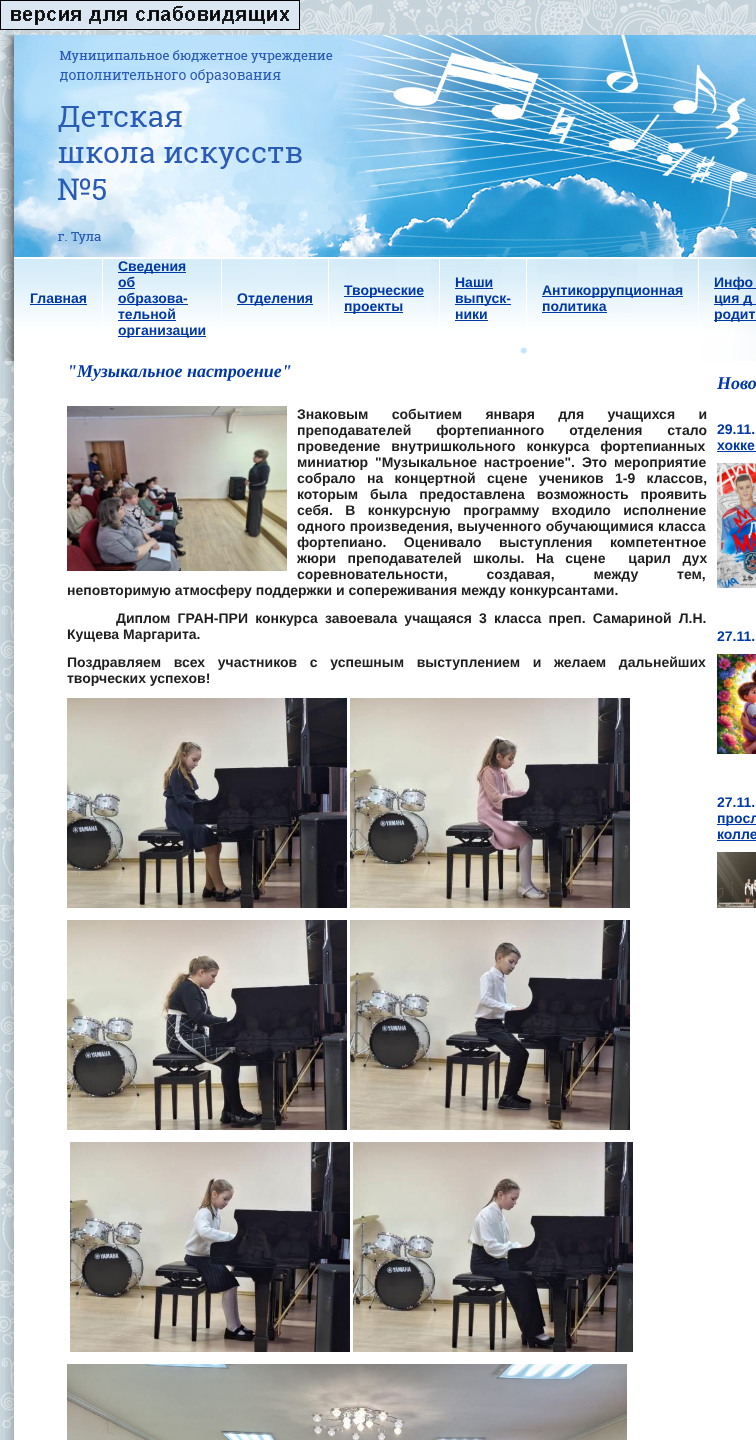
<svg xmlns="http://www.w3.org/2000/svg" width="756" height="1440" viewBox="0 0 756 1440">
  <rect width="100%" height="100%" fill="#ffffff"/>
  <image x="0" y="0" width="756" height="1440" href="img1.png"/>
  <image x="1" y="1" width="298" height="28" href="img2.png"/>
  <rect x="0.5" y="0.5" width="299" height="29" fill="none" stroke="#000000"/>
  <image x="2" y="35" width="754" height="326" href="img3.png"/>
  <text x="30" y="303" font-family="Liberation Sans" font-size="14" font-weight="bold" fill="#0039a6">Главная</text>
  <rect x="30" y="304" width="57" height="1" fill="#0039a6"/>
  <rect x="102" y="258" width="1" height="71" fill="#ffffff"/>
  <rect x="118" y="272" width="68" height="1" fill="#0039a6"/>
  <text x="118" y="271" font-family="Liberation Sans" font-size="14" font-weight="bold" fill="#0039a6">Сведения</text>
  <text x="118" y="287" font-family="Liberation Sans" font-size="14" font-weight="bold" fill="#0039a6">об</text>
  <rect x="118" y="288" width="17" height="1" fill="#0039a6"/>
  <rect x="118" y="304" width="70" height="1" fill="#0039a6"/>
  <text x="118" y="303" font-family="Liberation Sans" font-size="14" font-weight="bold" fill="#0039a6">образова-</text>
  <text x="118" y="319" font-family="Liberation Sans" font-size="14" font-weight="bold" fill="#0039a6">тельной</text>
  <rect x="118" y="320" width="58" height="1" fill="#0039a6"/>
  <rect x="118" y="336" width="88" height="1" fill="#0039a6"/>
  <text x="118" y="335" font-family="Liberation Sans" font-size="14" font-weight="bold" fill="#0039a6">организации</text>
  <rect x="221" y="258" width="1" height="71" fill="#ffffff"/>
  <rect x="237" y="304" width="76" height="1" fill="#0039a6"/>
  <text x="237" y="303" font-family="Liberation Sans" font-size="14" font-weight="bold" fill="#0039a6">Отделения</text>
  <rect x="328" y="258" width="1" height="71" fill="#ffffff"/>
  <rect x="344" y="296" width="80" height="1" fill="#0039a6"/>
  <text x="344" y="295" font-family="Liberation Sans" font-size="14" font-weight="bold" fill="#0039a6">Творческие</text>
  <rect x="344" y="312" width="59" height="1" fill="#0039a6"/>
  <text x="344" y="311" font-family="Liberation Sans" font-size="14" font-weight="bold" fill="#0039a6">проекты</text>
  <rect x="439" y="258" width="1" height="71" fill="#ffffff"/>
  <text x="455" y="287" font-family="Liberation Sans" font-size="14" font-weight="bold" fill="#0039a6">Наши</text>
  <rect x="455" y="288" width="38" height="1" fill="#0039a6"/>
  <rect x="455" y="304" width="56" height="1" fill="#0039a6"/>
  <text x="455" y="303" font-family="Liberation Sans" font-size="14" font-weight="bold" fill="#0039a6">выпуск-</text>
  <text x="455" y="319" font-family="Liberation Sans" font-size="14" font-weight="bold" fill="#0039a6">ники</text>
  <rect x="455" y="320" width="33" height="1" fill="#0039a6"/>
  <rect x="526" y="258" width="1" height="71" fill="#ffffff"/>
  <rect x="542" y="296" width="141" height="1" fill="#0039a6"/>
  <text x="542" y="295" font-family="Liberation Sans" font-size="14" font-weight="bold" fill="#0039a6">Антикоррупционная</text>
  <text x="542" y="311" font-family="Liberation Sans" font-size="14" font-weight="bold" fill="#0039a6">политика</text>
  <rect x="542" y="312" width="65" height="1" fill="#0039a6"/>
  <rect x="698" y="258" width="1" height="71" fill="#ffffff"/>
  <rect x="714" y="288" width="42" height="1" fill="#0039a6"/>
  <text x="714" y="287" font-family="Liberation Sans" font-size="14" font-weight="bold" fill="#0039a6">Инфо</text>
  <rect x="714" y="304" width="42" height="1" fill="#0039a6"/>
  <text x="714" y="303" font-family="Liberation Sans" font-size="14" font-weight="bold" fill="#0039a6">ция д</text>
  <rect x="714" y="320" width="42" height="1" fill="#0039a6"/>
  <text x="714" y="319" font-family="Liberation Sans" font-size="14" font-weight="bold" fill="#0039a6">родит</text>
  <image x="5" y="361" width="751" height="1079" href="img4.png"/>
  <text x="67" y="377" font-family="Liberation Serif" font-size="18" font-weight="bold" font-style="italic" fill="#0039a6">"Музыкальное настроение"</text>
  <image x="67" y="406" width="220" height="165" href="img5.png"/>
  <text x="297" y="419" word-spacing="19.5" font-family="Liberation Sans" font-size="14" font-weight="bold" fill="#1e1e1e">Знаковым событием января для учащихся и</text>
  <text x="297" y="435" word-spacing="21" font-family="Liberation Sans" font-size="14" font-weight="bold" fill="#1e1e1e">преподавателей фортепианного отделения стало</text>
  <text x="297" y="451" word-spacing="7" font-family="Liberation Sans" font-size="14" font-weight="bold" fill="#1e1e1e">проведение внутришкольного конкурса фортепианных</text>
  <text x="297" y="467" word-spacing="3" font-family="Liberation Sans" font-size="14" font-weight="bold" fill="#1e1e1e">миниатюр "Музыкальное настроение". Это мероприятие</text>
  <text x="297" y="483" word-spacing="7.5" font-family="Liberation Sans" font-size="14" font-weight="bold" fill="#1e1e1e">собрало на концертной сцене учеников 1-9 классов,</text>
  <text x="297" y="499" word-spacing="8" font-family="Liberation Sans" font-size="14" font-weight="bold" fill="#1e1e1e">которым была предоставлена возможность проявить</text>
  <text x="297" y="515" word-spacing="8.5" font-family="Liberation Sans" font-size="14" font-weight="bold" fill="#1e1e1e">себя. В конкурсную программу входило исполнение</text>
  <text x="297" y="531" word-spacing="0.5" font-family="Liberation Sans" font-size="14" font-weight="bold" fill="#1e1e1e">одного произведения, выученного обучающимися класса</text>
  <text x="297" y="547" word-spacing="13.5" font-family="Liberation Sans" font-size="14" font-weight="bold" fill="#1e1e1e">фортепиано. Оценивало выступления компетентное</text>
  <text x="297" y="563" word-spacing="7.5" font-family="Liberation Sans" font-size="14" font-weight="bold" fill="#1e1e1e" xml:space="preserve">жюри преподавателей школы. На сцене  царил дух</text>
  <text x="297" y="579" word-spacing="35" font-family="Liberation Sans" font-size="14" font-weight="bold" fill="#1e1e1e">соревновательности, создавая, между тем,</text>
  <text x="67" y="595" font-family="Liberation Sans" font-size="14" font-weight="bold" fill="#1e1e1e">неповторимую атмосферу поддержки и сопереживания между конкурсантами.</text>
  <text x="116" y="623" word-spacing="3.25" font-family="Liberation Sans" font-size="14" font-weight="bold" fill="#1e1e1e">Диплом ГРАН-ПРИ конкурса завоевала учащаяся 3 класса преп. Самариной Л.Н.</text>
  <text x="67" y="639" font-family="Liberation Sans" font-size="14" font-weight="bold" fill="#1e1e1e">Кущева Маргарита.</text>
  <text x="67" y="667" word-spacing="8.75" font-family="Liberation Sans" font-size="14" font-weight="bold" fill="#1e1e1e">Поздравляем всех участников с успешным выступлением и желаем дальнейших</text>
  <text x="67" y="683" font-family="Liberation Sans" font-size="14" font-weight="bold" fill="#1e1e1e">творческих успехов!</text>
  <image x="67" y="698" width="280" height="210" href="img6.png"/>
  <image x="350" y="698" width="280" height="210" href="img7.png"/>
  <image x="67" y="920" width="280" height="210" href="img8.png"/>
  <image x="350" y="920" width="280" height="210" href="img9.png"/>
  <image x="70" y="1142" width="280" height="210" href="img10.png"/>
  <image x="353" y="1142" width="280" height="210" href="img11.png"/>
  <image x="67" y="1364" width="560" height="76" href="img12.png"/>
  <text x="717" y="389" font-family="Liberation Serif" font-size="18" font-weight="bold" font-style="italic" fill="#0039a6">Ново</text>
  <text x="717" y="434" font-family="Liberation Sans" font-size="14" font-weight="bold" fill="#0039a6">29.11.</text>
  <text x="717" y="450" font-family="Liberation Sans" font-size="14" font-weight="bold" fill="#0039a6">хокке</text>
  <rect x="717" y="451" width="39" height="1" fill="#0039a6"/>
  <image x="717" y="463" width="39" height="125" href="img13.png"/>
  <text x="717" y="641" font-family="Liberation Sans" font-size="14" font-weight="bold" fill="#0039a6">27.11.</text>
  <image x="717" y="654" width="39" height="100" href="img14.png"/>
  <text x="717" y="807" font-family="Liberation Sans" font-size="14" font-weight="bold" fill="#0039a6">27.11.</text>
  <rect x="717" y="824" width="39" height="1" fill="#0039a6"/>
  <text x="717" y="823" font-family="Liberation Sans" font-size="14" font-weight="bold" fill="#0039a6">просл</text>
  <text x="717" y="839" font-family="Liberation Sans" font-size="14" font-weight="bold" fill="#0039a6">колле</text>
  <rect x="717" y="840" width="39" height="1" fill="#0039a6"/>
  <image x="717" y="852" width="39" height="56" href="img15.png"/>
</svg>
